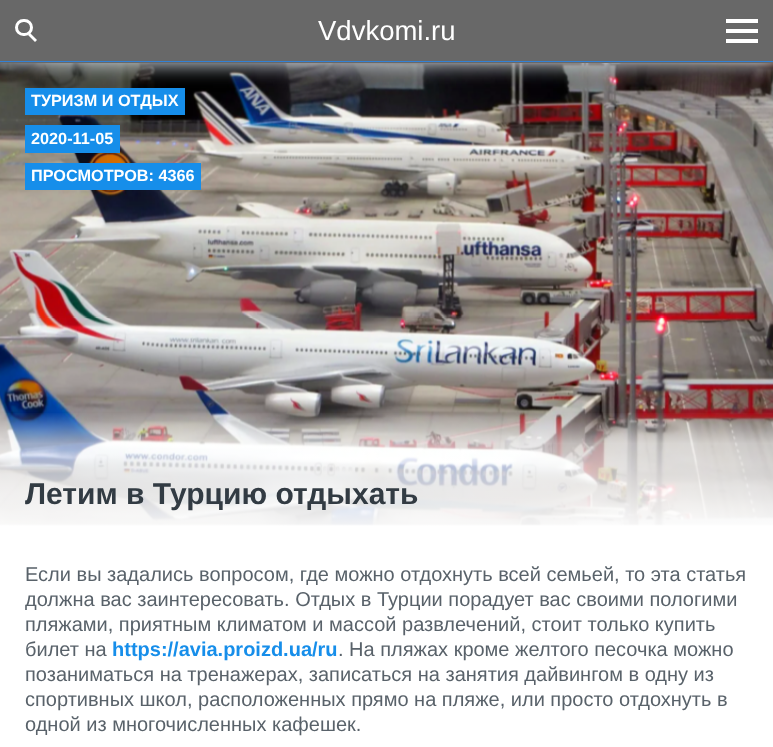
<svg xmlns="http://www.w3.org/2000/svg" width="773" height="747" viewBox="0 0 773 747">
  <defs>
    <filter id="blur1" x="-50%" y="-200%" width="200%" height="500%"><feGaussianBlur stdDeviation="9.5"/></filter>
    <linearGradient id="g1" gradientUnits="userSpaceOnUse" x1="387" y1="412" x2="387" y2="538"><stop offset="0" stop-color="#ffffff" stop-opacity="0"/><stop offset="0.25" stop-color="#ffffff" stop-opacity="0.6"/><stop offset="1" stop-color="#ffffff"/></linearGradient>
  </defs>
  <rect width="100%" height="100%" fill="#ffffff"/>
  <image x="0" y="63" width="773" height="463" href="img1.png"/>
  <rect x="25" y="88" width="160" height="27" fill="#168eea"/>
  <rect x="-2" y="-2" width="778" height="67" fill="#ced7df" filter="url(#blur1)"/>
  <rect x="0" y="0" width="773" height="63" fill="#686868"/>
  <rect x="0" y="61" width="773" height="1" fill="#3281d5"/>
  <rect x="16.5" y="20.5" width="15" height="14" rx="7" fill="none" stroke="#ffffff" stroke-width="3"/>
  <path d="M30 33L37 40L35 42L28 35Z" fill="#ffffff"/>
  <text x="318" y="40" font-family="Liberation Sans" font-size="27.5" fill="#ffffff">Vdvkomi.ru</text>
  <rect x="726" y="19" width="32" height="4" fill="#ffffff"/>
  <rect x="726" y="29" width="32" height="4" fill="#ffffff"/>
  <rect x="726" y="39" width="32" height="4" fill="#ffffff"/>
  <text x="31" y="106" font-family="Liberation Sans" font-size="16.25" font-weight="bold" fill="#ffffff">ТУРИЗМ И ОТДЫХ</text>
  <rect x="25" y="125" width="95" height="28" fill="#168eea"/>
  <text x="31" y="144" font-family="Liberation Sans" font-size="16.25" font-weight="bold" fill="#ffffff">2020-11-05</text>
  <rect x="25" y="163" width="176" height="27" fill="#168eea"/>
  <text x="31" y="181" font-family="Liberation Sans" font-size="16.25" font-weight="bold" fill="#ffffff">ПРОСМОТРОВ: 4366</text>
  <rect x="0" y="413" width="773" height="113" fill="url(#g1)"/>
  <text x="25" y="504" font-family="Liberation Sans" font-size="30" font-weight="bold" fill="#323b43">Летим в Турцию отдыхать</text>
  <text x="25" y="581" font-family="Liberation Sans" font-size="20" fill="#59626a">Если вы задались вопросом, где можно отдохнуть всей семьей, то эта статья</text>
  <text x="25" y="606" font-family="Liberation Sans" font-size="20" fill="#59626a">должна вас заинтересовать. Отдых в Турции порадует вас своими пологими</text>
  <text x="25" y="631" font-family="Liberation Sans" font-size="20" fill="#59626a">пляжами, приятным климатом и массой развлечений, стоит только купить</text>
  <text x="25" y="656" font-family="Liberation Sans" font-size="20" fill="#59626a">билет на</text>
  <text x="112" y="656" font-family="Liberation Sans" font-size="20" font-weight="bold" fill="#168eea">https://avia.proizd.ua/ru</text>
  <text x="338" y="656" font-family="Liberation Sans" font-size="20" fill="#59626a">. На пляжах кроме желтого песочка можно</text>
  <text x="25" y="681" font-family="Liberation Sans" font-size="20" fill="#59626a">позаниматься на тренажерах, записаться на занятия дайвингом в одну из</text>
  <text x="25" y="706" font-family="Liberation Sans" font-size="20" fill="#59626a">спортивных школ, расположенных прямо на пляже, или просто отдохнуть в</text>
  <text x="25" y="731" font-family="Liberation Sans" font-size="20" fill="#59626a">одной из многочисленных кафешек.</text>
</svg>
